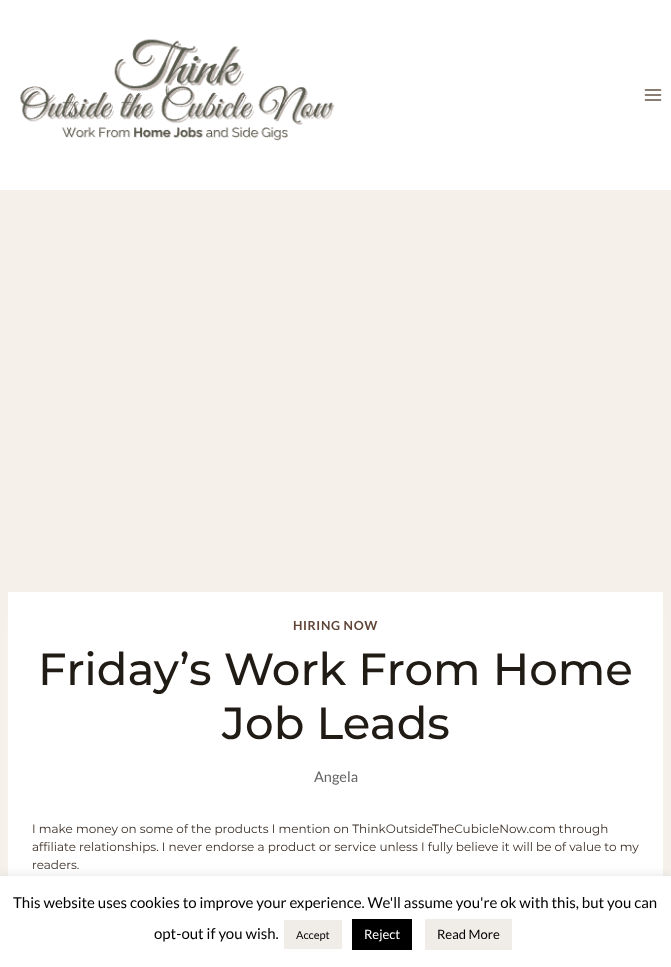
<svg xmlns="http://www.w3.org/2000/svg" width="671" height="967" viewBox="0 0 671 967">
  <defs>
    <filter id="blur1" x="-50%" y="-200%" width="200%" height="500%"><feGaussianBlur stdDeviation="7.5"/></filter>
    <filter id="blur2" x="-50%" y="-200%" width="200%" height="500%"><feGaussianBlur stdDeviation="5"/></filter>
  </defs>
  <rect width="100%" height="100%" fill="#f5f1ea"/>
  <rect x="0" y="0" width="671" height="190" fill="#ffffff"/>
  <image x="20" y="39" width="315" height="102" href="img1.png"/>
  <image x="644" y="89" width="18" height="12" href="img2.png"/>
  <rect x="18" y="617" width="635" height="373" fill="#ffffff" filter="url(#blur1)"/>
  <rect x="8" y="592" width="655" height="284" fill="#ffffff"/>
  <text x="293" y="630" font-family="Lato" font-size="12.5" font-weight="bold" letter-spacing="0.6" fill="#5f4539">HIRING NOW</text>
  <text x="38" y="685" font-family="Montserrat" font-size="45" font-weight="500" fill="#211b16">Friday’s Work From Home</text>
  <text x="222" y="739" font-family="Montserrat" font-size="45" font-weight="500" fill="#211b16">Job Leads</text>
  <text x="314" y="782" font-family="Lato" font-size="14.5" fill="#646464">Angela</text>
  <text x="32" y="833" font-family="Montserrat" font-size="12" fill="#392e26">I make money on some of the products I mention on ThinkOutsideTheCubicleNow.com through</text>
  <text x="32" y="851" font-family="Montserrat" font-size="12" fill="#392e26">affiliate relationships. I never endorse a product or service unless I fully believe it will be of value to my</text>
  <text x="32" y="869" font-family="Montserrat" font-size="12" fill="#392e26">readers.</text>
  <rect x="0" y="875" width="671" height="91" fill="#acabab" fill-opacity="0.3" filter="url(#blur2)"/>
  <rect x="0" y="876" width="671" height="91" fill="#ffffff"/>
  <text x="13" y="908" font-family="Lato" font-size="15" fill="#000000">This website uses cookies to improve your experience. We'll assume you're ok with this, but you can</text>
  <text x="154" y="939" font-family="Lato" font-size="15" fill="#000000">opt-out if you wish.</text>
  <rect x="284" y="920" width="58" height="29" fill="#f0ece8"/>
  <text x="296" y="939" font-family="Lato" font-size="11" fill="#000000">Accept</text>
  <rect x="352" y="919" width="60" height="31" fill="#000000"/>
  <text x="364" y="939" font-family="Lato" font-size="13" fill="#ffffff">Reject</text>
  <rect x="425" y="919" width="87" height="31" fill="#f0ece8"/>
  <text x="437" y="939" font-family="Lato" font-size="13" fill="#000000">Read More</text>
</svg>
